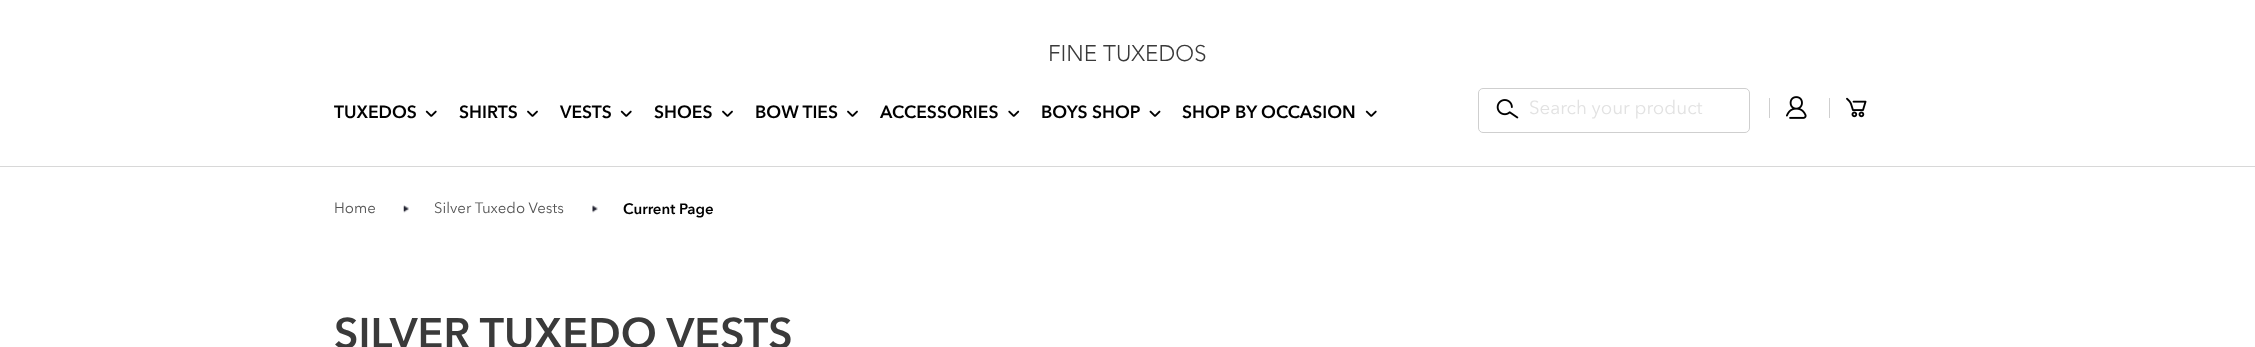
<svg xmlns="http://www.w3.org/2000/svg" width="2255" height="347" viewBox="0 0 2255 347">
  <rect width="100%" height="100%" fill="#ffffff"/>
  <text x="1048" y="61" font-family="Avenir" font-size="22.5" font-weight="300" fill="#3a3a3a">FINE TUXEDOS</text>
  <text x="334" y="118" font-family="Avenir Next" font-size="17.5" font-weight="600" fill="#000000">TUXEDOS</text>
  <image x="425" y="110" width="12" height="7" href="img1.png"/>
  <text x="459" y="118" font-family="Avenir Next" font-size="17.5" font-weight="600" fill="#000000">SHIRTS</text>
  <image x="527" y="110" width="11" height="7" href="img2.png"/>
  <text x="560" y="118" font-family="Avenir Next" font-size="17.5" font-weight="600" fill="#000000">VESTS</text>
  <image x="620" y="110" width="12" height="7" href="img1.png"/>
  <text x="654" y="118" font-family="Avenir Next" font-size="17.5" font-weight="600" fill="#000000">SHOES</text>
  <image x="722" y="110" width="11" height="7" href="img2.png"/>
  <text x="755" y="118" font-family="Avenir Next" font-size="17.5" font-weight="600" fill="#000000">BOW TIES</text>
  <image x="847" y="110" width="11" height="7" href="img2.png"/>
  <text x="880" y="118" font-family="Avenir Next" font-size="17.5" font-weight="600" fill="#000000">ACCESSORIES</text>
  <image x="1008" y="110" width="12" height="7" href="img3.png"/>
  <text x="1041" y="118" font-family="Avenir Next" font-size="17.5" font-weight="600" fill="#000000">BOYS SHOP</text>
  <image x="1149" y="110" width="12" height="7" href="img4.png"/>
  <text x="1182" y="118" font-family="Avenir Next" font-size="17.5" font-weight="600" fill="#000000">SHOP BY OCCASION</text>
  <image x="1365" y="110" width="12" height="7" href="img1.png"/>
  <rect x="1478.5" y="88.5" width="271" height="44" rx="4.5" fill="none" stroke="#cfcfcf"/>
  <image x="1496" y="99" width="23" height="20" href="img5.png"/>
  <text x="1529" y="114" font-family="Avenir Next" font-size="18.75" fill="#e2e2e2">Search your product</text>
  <rect x="1769" y="98" width="1" height="20" fill="#cfcfcf"/>
  <image x="1786" y="96" width="21" height="23" href="img6.png"/>
  <rect x="1829" y="98" width="1" height="20" fill="#cfcfcf"/>
  <image x="1846" y="97" width="21" height="21" href="img7.png"/>
  <rect x="0" y="166" width="2255" height="1" fill="#d8d8d8"/>
  <text x="334" y="213" font-family="Avenir Next" font-size="15" fill="#555555">Home</text>
  <image x="403" y="205" width="6" height="8" href="img8.png"/>
  <text x="434" y="213" font-family="Avenir Next" font-size="15" fill="#555555">Silver Tuxedo Vests</text>
  <image x="592" y="205" width="6" height="8" href="img9.png"/>
  <text x="623" y="214" font-family="Avenir Next" font-size="15" font-weight="600" fill="#000000">Current Page</text>
  <text x="334" y="348" font-family="Avenir Next" font-size="42.5" font-weight="600" fill="#3a3a3a">SILVER TUXEDO VESTS</text>
</svg>
